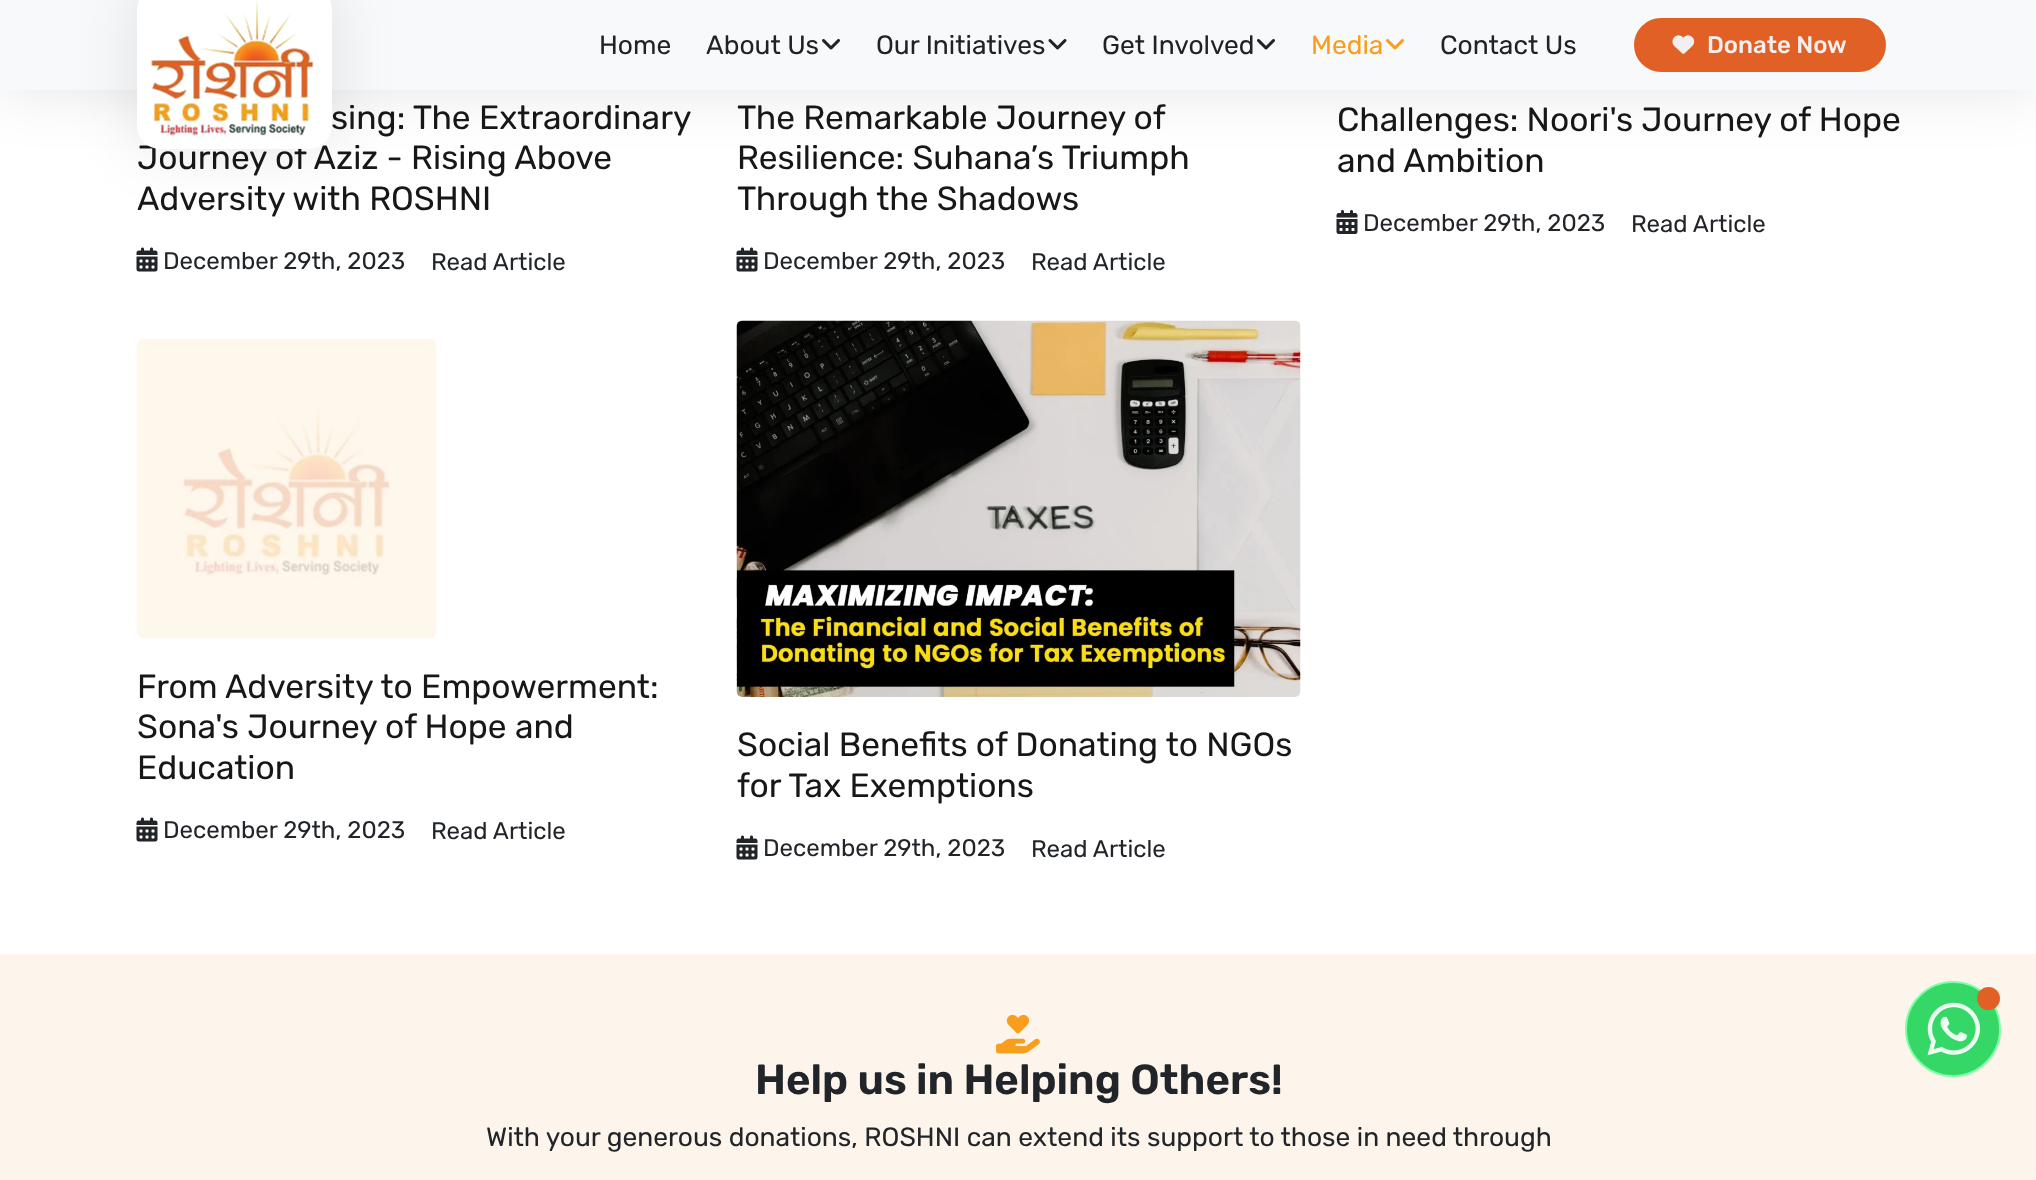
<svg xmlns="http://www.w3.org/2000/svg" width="2036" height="1180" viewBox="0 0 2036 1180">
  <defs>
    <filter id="blur1" x="-50%" y="-200%" width="200%" height="500%"><feGaussianBlur stdDeviation="31"/></filter>
  </defs>
  <rect width="100%" height="100%" fill="#ffffff"/>
  <rect x="0" y="0" width="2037" height="90" fill="#000000" fill-opacity="0.1" filter="url(#blur1)"/>
  <rect x="0" y="0" width="2036" height="90" fill="#f8f9fa"/>
  <rect x="137" y="-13" width="195" height="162" rx="23" fill="#000000" fill-opacity="0.1" filter="url(#blur1)"/>
  <text x="137" y="169" font-family="Rubik" font-size="33.6" fill="#171717">Journey of Aziz - Rising Above</text>
  <rect x="137" y="-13" width="195" height="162" rx="23" fill="#ffffff"/>
  <image x="151" y="0" width="163" height="136" href="img1.png"/>
  <text x="599" y="54" font-family="Rubik" font-size="26.4" fill="#222222">Home</text>
  <text x="706" y="54" font-family="Rubik" font-size="26.4" fill="#222222">About Us</text>
  <image x="822" y="39" width="18" height="11" href="img2.png"/>
  <text x="876" y="54" font-family="Rubik" font-size="26.4" fill="#222222">Our Initiatives</text>
  <image x="1048" y="39" width="19" height="11" href="img3.png"/>
  <text x="1102" y="54" font-family="Rubik" font-size="26.4" fill="#222222">Get Involved</text>
  <image x="1257" y="39" width="18" height="11" href="img2.png"/>
  <text x="1311" y="54" font-family="Rubik" font-size="26.4" fill="#f89e1c">Media</text>
  <image x="1386" y="39" width="18" height="11" href="img4.png"/>
  <text x="1440" y="54" font-family="Rubik" font-size="26.4" fill="#222222">Contact Us</text>
  <rect x="1635" y="19" width="250" height="52" rx="26" fill="#e16026" stroke="#e16026" stroke-width="2"/>
  <image x="1672" y="35" width="23" height="19" href="img5.png"/>
  <text x="1707" y="53" font-family="Rubik" font-size="24" font-weight="500" fill="#f1efef">Donate Now</text>
  <text x="331" y="129" font-family="Rubik" font-size="33.6" fill="#171717">sing: The Extraordinary</text>
  <text x="137" y="210" font-family="Rubik" font-size="33.6" fill="#171717">Adversity with ROSHNI</text>
  <image x="136" y="247" width="22" height="25" href="img6.png"/>
  <text x="163" y="269" font-family="Rubik" font-size="24" fill="#212529">December 29th, 2023</text>
  <text x="431" y="270" font-family="Rubik" font-size="24" fill="#212529">Read Article</text>
  <text x="737" y="129" font-family="Rubik" font-size="33.6" fill="#171717">The Remarkable Journey of</text>
  <text x="737" y="169" font-family="Rubik" font-size="33.6" fill="#171717">Resilience: Suhana’s Triumph</text>
  <text x="737" y="210" font-family="Rubik" font-size="33.6" fill="#171717">Through the Shadows</text>
  <image x="736" y="247" width="22" height="25" href="img6.png"/>
  <text x="763" y="269" font-family="Rubik" font-size="24" fill="#212529">December 29th, 2023</text>
  <text x="1031" y="270" font-family="Rubik" font-size="24" fill="#212529">Read Article</text>
  <text x="1337" y="131" font-family="Rubik" font-size="33.6" fill="#171717">Challenges: Noori's Journey of Hope</text>
  <text x="1337" y="172" font-family="Rubik" font-size="33.6" fill="#171717">and Ambition</text>
  <image x="1336" y="210" width="22" height="24" href="img7.png"/>
  <text x="1363" y="231" font-family="Rubik" font-size="24" fill="#212529">December 29th, 2023</text>
  <text x="1631" y="232" font-family="Rubik" font-size="24" fill="#212529">Read Article</text>
  <image x="136" y="338" width="301" height="301" href="img8.png"/>
  <text x="137" y="698" font-family="Rubik" font-size="33.6" fill="#171717">From Adversity to Empowerment:</text>
  <text x="137" y="738" font-family="Rubik" font-size="33.6" fill="#171717">Sona's Journey of Hope and</text>
  <text x="137" y="779" font-family="Rubik" font-size="33.6" fill="#171717">Education</text>
  <image x="136" y="817" width="22" height="25" href="img6.png"/>
  <text x="163" y="838" font-family="Rubik" font-size="24" fill="#212529">December 29th, 2023</text>
  <text x="431" y="839" font-family="Rubik" font-size="24" fill="#212529">Read Article</text>
  <image x="736" y="320" width="565" height="377" href="img9.png"/>
  <text x="737" y="756" font-family="Rubik" font-size="33.6" fill="#171717">Social Benefits of Donating to NGOs</text>
  <text x="737" y="797" font-family="Rubik" font-size="33.6" fill="#171717">for Tax Exemptions</text>
  <image x="736" y="835" width="22" height="25" href="img6.png"/>
  <text x="763" y="856" font-family="Rubik" font-size="24" fill="#212529">December 29th, 2023</text>
  <text x="1031" y="857" font-family="Rubik" font-size="24" fill="#212529">Read Article</text>
  <rect x="0" y="954" width="2036" height="226" fill="#fdf5ec"/>
  <circle cx="1953" cy="1029" r="47" fill="#35d766" stroke="#7dffa5" stroke-width="2"/>
  <circle cx="1988.5" cy="998.5" r="11.5" fill="#e16026"/>
  <image x="1927" y="1002" width="53" height="54" href="img10.png"/>
  <image x="996" y="1014" width="44" height="40" href="img11.png"/>
  <text x="755" y="1094" font-family="Rubik" font-size="42" font-weight="600" fill="#212529">Help us in Helping Others!</text>
  <text x="486" y="1146" font-family="Rubik" font-size="26.4" fill="#212529">With your generous donations, ROSHNI can extend its support to those in need through</text>
</svg>
